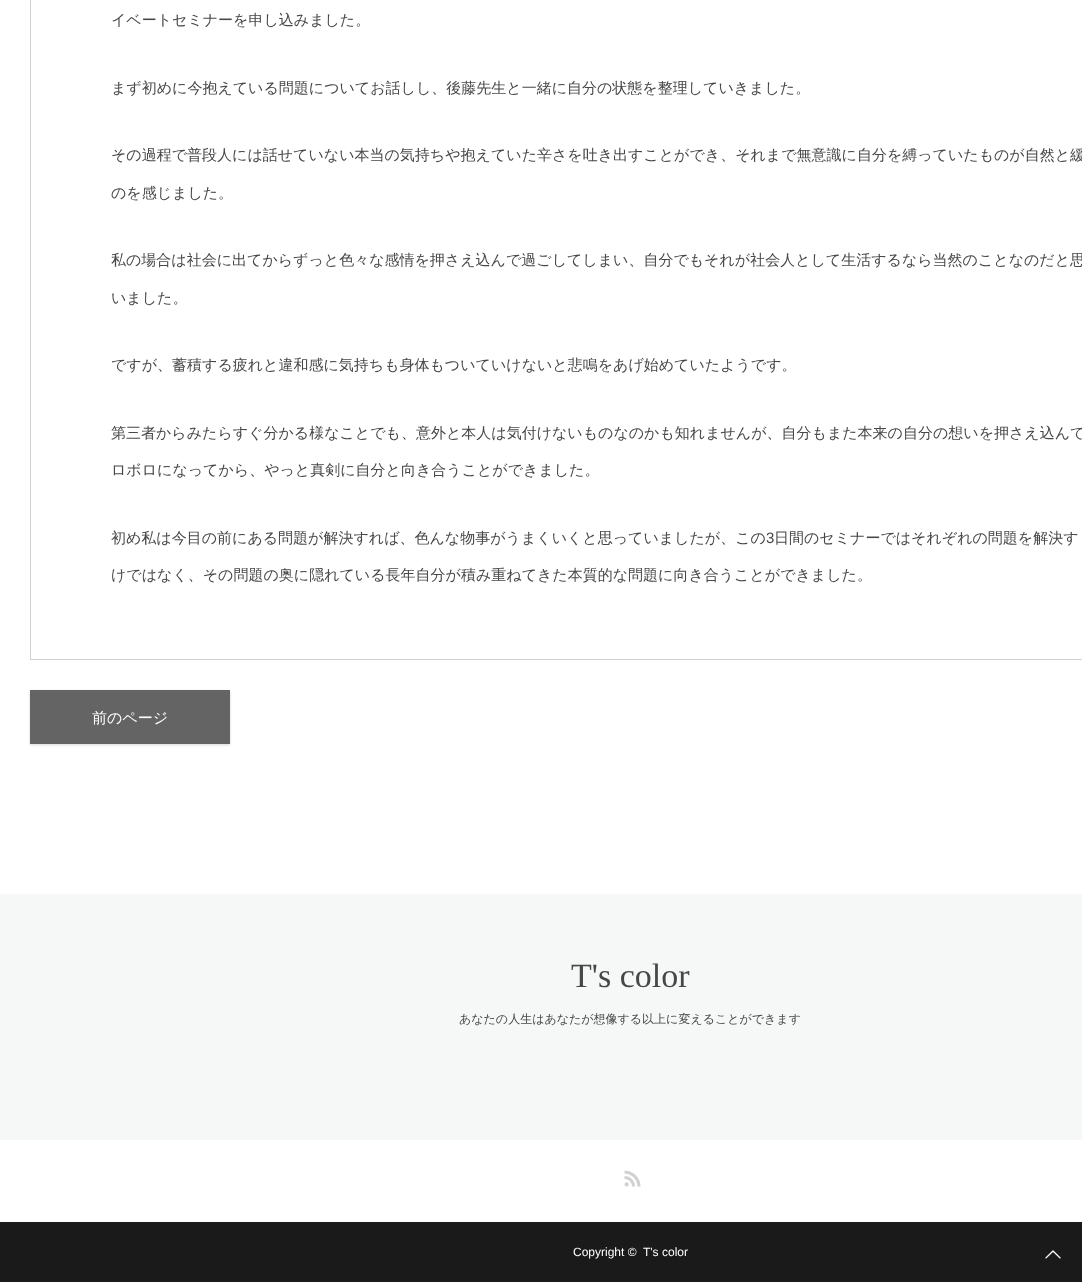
<svg xmlns="http://www.w3.org/2000/svg" width="1082" height="1282" viewBox="0 0 1082 1282">
  <defs>
    <filter id="blur1" x="-50%" y="-200%" width="200%" height="500%"><feGaussianBlur stdDeviation="1.5"/></filter>
  </defs>
  <rect width="100%" height="100%" fill="#ffffff"/>
  <rect x="30.5" y="-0.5" width="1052" height="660" fill="none" stroke="#d1d1d1"/>
  <text x="111" y="25" font-family="WenQuanYi Zen Hei" font-size="15" font-weight="500" fill="#474747">イベートセミナーを申し込みました。</text>
  <text x="111" y="93" font-family="WenQuanYi Zen Hei" font-size="15" font-weight="500" fill="#474747">まず初めに今抱えている問題についてお話しし、後藤先生と一緒に自分の状態を整理していきました。</text>
  <text x="111" y="160" font-family="WenQuanYi Zen Hei" font-size="15" font-weight="500" fill="#474747">その過程で普段人には話せていない本当の気持ちや抱えていた辛さを吐き出すことができ、それまで無意識に自分を縛っていたものが自然と緩</text>
  <text x="111" y="198" font-family="WenQuanYi Zen Hei" font-size="15" font-weight="500" fill="#474747">のを感じました。</text>
  <text x="111" y="265" font-family="WenQuanYi Zen Hei" font-size="15" font-weight="500" fill="#474747">私の場合は社会に出てからずっと色々な感情を押さえ込んで過ごしてしまい、自分でもそれが社会人として生活するなら当然のことなのだと思</text>
  <text x="111" y="303" font-family="WenQuanYi Zen Hei" font-size="15" font-weight="500" fill="#474747">いました。</text>
  <text x="111" y="370" font-family="WenQuanYi Zen Hei" font-size="15" font-weight="500" fill="#474747">ですが、蓄積する疲れと違和感に気持ちも身体もついていけないと悲鳴をあげ始めていたようです。</text>
  <text x="111" y="438" font-family="WenQuanYi Zen Hei" font-size="15" font-weight="500" fill="#474747">第三者からみたらすぐ分かる様なことでも、意外と本人は気付けないものなのかも知れませんが、自分もまた本来の自分の想いを押さえ込んで</text>
  <text x="111" y="475" font-family="WenQuanYi Zen Hei" font-size="15" font-weight="500" fill="#474747">ロボロになってから、やっと真剣に自分と向き合うことができました。</text>
  <text x="111" y="543" font-family="WenQuanYi Zen Hei" font-size="15" font-weight="500" fill="#474747">初め私は今目の前にある問題が解決すれば、色んな物事がうまくいくと思っていましたが、この</text>
  <text x="766" y="543" font-family="Liberation Sans" font-size="15" fill="#474747">3</text>
  <text x="774" y="543" font-family="WenQuanYi Zen Hei" font-size="15" font-weight="500" fill="#474747">日間のセミナーではそれぞれの問題を解決す</text>
  <text x="111" y="580" font-family="WenQuanYi Zen Hei" font-size="15" font-weight="500" fill="#474747">けではなく、その問題の奥に隠れている長年自分が積み重ねてきた本質的な問題に向き合うことができました。</text>
  <rect x="30" y="691" width="200" height="54" fill="#1a1a1a" fill-opacity="0.15" filter="url(#blur1)"/>
  <rect x="30" y="690" width="200" height="54" fill="#646464"/>
  <text x="92" y="723" font-family="WenQuanYi Zen Hei" font-size="15" font-weight="500" fill="#ffffff">前のページ</text>
  <rect x="0" y="894" width="1082" height="246" fill="#f6f8f7"/>
  <text x="571" y="987" font-family="Liberation Serif" font-size="34" fill="#474747">T's color</text>
  <text x="459" y="1023" font-family="WenQuanYi Zen Hei" font-size="12" font-weight="500" fill="#474747">あなたの人生はあなたが想像する以上に変えることができます</text>
  <image x="624" y="1170" width="17" height="17" href="img1.png"/>
  <rect x="0" y="1222" width="1082" height="60" fill="#1a1a1a"/>
  <text x="573" y="1256" font-family="Liberation Sans" font-size="12" fill="#ffffff">Copyright ©</text>
  <text x="643" y="1256" font-family="Liberation Sans" font-size="12" fill="#ffffff">T's color</text>
  <image x="1045" y="1250" width="16" height="9" href="img2.png"/>
</svg>
